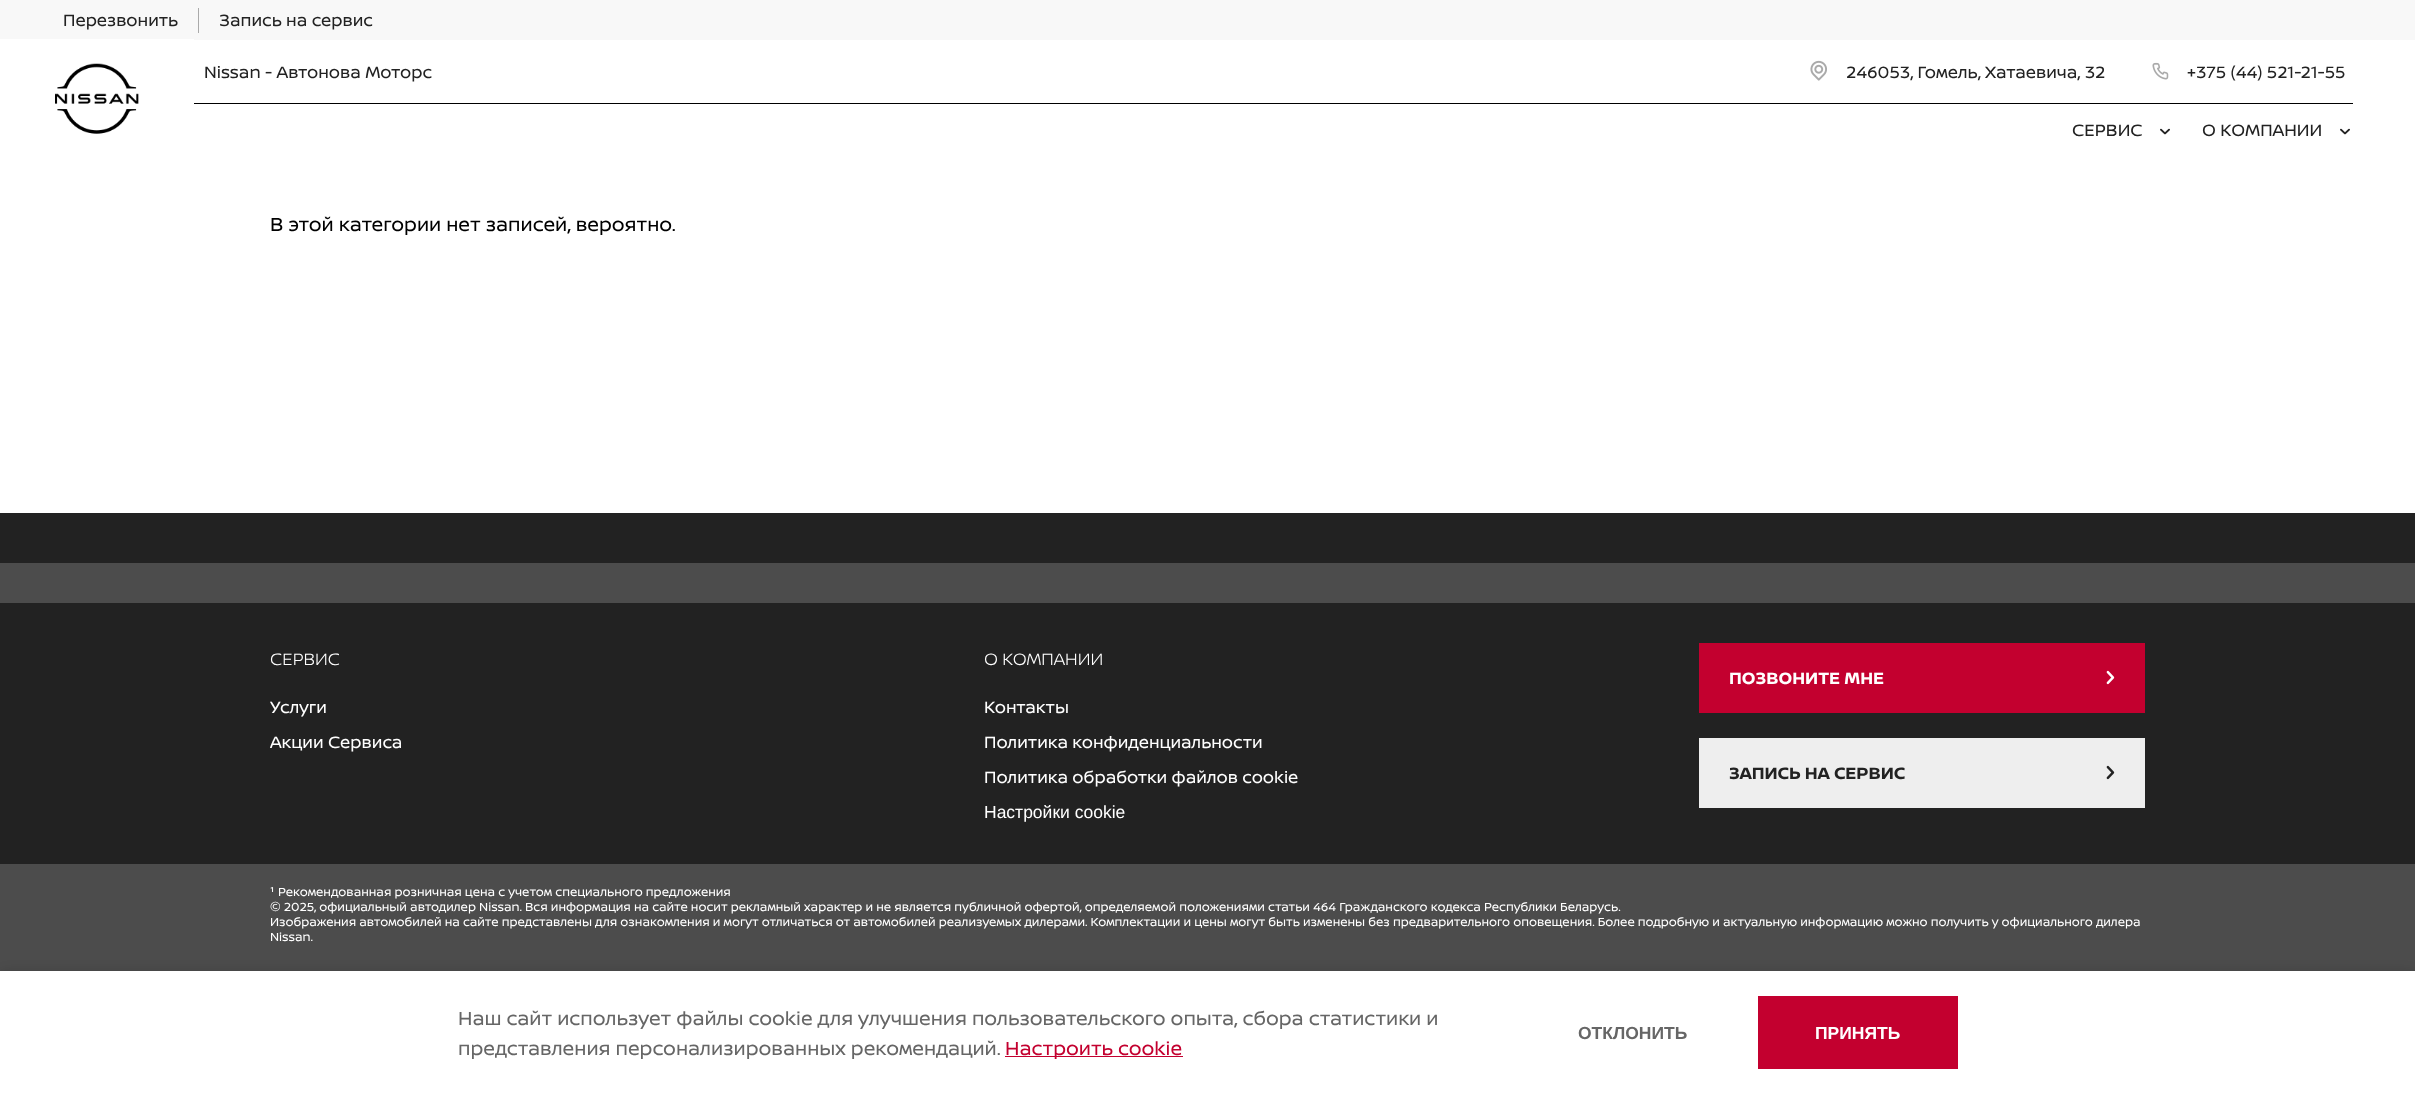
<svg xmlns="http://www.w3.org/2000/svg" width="2415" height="1093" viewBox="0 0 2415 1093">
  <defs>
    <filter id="blur1" x="-50%" y="-200%" width="200%" height="500%"><feGaussianBlur stdDeviation="6"/></filter>
  </defs>
  <rect width="100%" height="100%" fill="#ffffff"/>
  <rect x="0" y="0" width="2415" height="40" fill="#f8f8f8"/>
  <rect x="198" y="8" width="1" height="25" fill="#aaaaaa"/>
  <text x="63" y="26" font-family="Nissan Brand" font-size="17.5" fill="#222222">Перезвонить</text>
  <text x="219" y="26" font-family="Nissan Brand" font-size="17.5" fill="#222222">Запись на сервис</text>
  <rect x="0" y="39" width="194" height="1" fill="#ffffff"/>
  <image x="55" y="63" width="84" height="71" href="img1.png"/>
  <text x="204" y="78" font-family="Nissan Brand" font-size="17.5" fill="#222222">Nissan - Автонова Моторс</text>
  <image x="1810" y="60" width="17" height="21" href="img2.png"/>
  <text x="1846" y="78" font-family="Nissan Brand" font-size="17.5" fill="#222222">246053, Гомель, Хатаевича, 32</text>
  <image x="2152" y="62" width="17" height="18" href="img3.png"/>
  <text x="2187" y="78" font-family="Nissan Brand" font-size="17.5" fill="#222222">+375 (44) 521-21-55</text>
  <rect x="194" y="103" width="2159" height="1" fill="#000000"/>
  <text x="2072" y="136" font-family="Nissan Brand" font-size="17.5" fill="#222222">СЕРВИС</text>
  <image x="2160" y="128" width="10" height="7" href="img4.png"/>
  <text x="2202" y="136" font-family="Nissan Brand" font-size="17.5" fill="#222222">О КОМПАНИИ</text>
  <image x="2340" y="128" width="10" height="7" href="img4.png"/>
  <text x="270" y="231" font-family="Nissan Brand" font-size="20" fill="#000000">В этой категории нет записей, вероятно.</text>
  <rect x="0" y="513" width="2415" height="50" fill="#222222"/>
  <rect x="0" y="563" width="2415" height="40" fill="#4c4c4c"/>
  <rect x="0" y="603" width="2415" height="261" fill="#222222"/>
  <text x="270" y="665" font-family="Nissan Brand" font-size="17.5" font-weight="300" fill="#ffffff">СЕРВИС</text>
  <text x="270" y="713" font-family="Nissan Brand" font-size="17.5" fill="#ffffff">Услуги</text>
  <text x="270" y="748" font-family="Nissan Brand" font-size="17.5" fill="#ffffff">Акции Сервиса</text>
  <text x="984" y="665" font-family="Nissan Brand" font-size="17.5" font-weight="300" fill="#ffffff">О КОМПАНИИ</text>
  <text x="984" y="713" font-family="Nissan Brand" font-size="17.5" fill="#ffffff">Контакты</text>
  <text x="984" y="748" font-family="Nissan Brand" font-size="17.5" fill="#ffffff">Политика конфиденциальности</text>
  <text x="984" y="783" font-family="Nissan Brand" font-size="17.5" fill="#ffffff">Политика обработки файлов cookie</text>
  <text x="984" y="818" font-family="Liberation Sans" font-size="17.5" fill="#ffffff">Настройки cookie</text>
  <rect x="1699" y="643" width="446" height="70" fill="#c3002f"/>
  <text x="1729" y="684" font-family="Nissan Brand" font-size="17.5" font-weight="bold" fill="#ffffff">ПОЗВОНИТЕ МНЕ</text>
  <image x="2106" y="670" width="9" height="15" href="img5.png"/>
  <rect x="1699" y="738" width="446" height="70" fill="#eeeeee"/>
  <text x="1729" y="779" font-family="Nissan Brand" font-size="17.5" font-weight="bold" fill="#222222">ЗАПИСЬ НА СЕРВИС</text>
  <image x="2106" y="765" width="9" height="15" href="img6.png"/>
  <rect x="0" y="864" width="2415" height="107" fill="#4c4c4c"/>
  <text x="270" y="896" font-family="Roboto" font-size="12.5" fill="#ffffff">¹</text>
  <text x="278" y="896" font-family="Nissan Brand" font-size="12.5" fill="#ffffff">Рекомендованная розничная цена с учетом специального предложения</text>
  <text x="270" y="911" font-family="Nissan Brand" font-size="12.5" fill="#ffffff">© 2025, официальный автодилер Nissan. Вся информация на сайте носит рекламный характер и не является публичной офертой, определяемой положениями статьи 464 Гражданского кодекса Республики Беларусь.</text>
  <text x="270" y="926" font-family="Nissan Brand" font-size="12.5" fill="#ffffff">Изображения автомобилей на сайте представлены для ознакомления и могут отличаться от автомобилей реализуемых дилерами. Комплектации и цены могут быть изменены без предварительного оповещения. Более подробную и актуальную информацию можно получить у официального дилера</text>
  <text x="270" y="941" font-family="Nissan Brand" font-size="12.5" fill="#ffffff">Nissan.</text>
  <rect x="0" y="969" width="2415" height="122" fill="#000000" fill-opacity="0.1" filter="url(#blur1)"/>
  <rect x="0" y="971" width="2415" height="122" fill="#ffffff"/>
  <text x="458" y="1025" font-family="Nissan Brand" font-size="20" fill="#666666">Наш сайт использует файлы cookie для улучшения пользовательского опыта, сбора статистики и</text>
  <text x="458" y="1055" font-family="Nissan Brand" font-size="20" fill="#666666">представления персонализированных рекомендаций.</text>
  <rect x="1005" y="1056" width="178" height="1" fill="#c3002f"/>
  <text x="1005" y="1055" font-family="Nissan Brand" font-size="20" fill="#c3002f">Настроить cookie</text>
  <text x="1578" y="1039" font-family="Liberation Sans" font-size="17.5" font-weight="bold" fill="#666666">ОТКЛОНИТЬ</text>
  <rect x="1758" y="996" width="200" height="73" fill="#c3002f"/>
  <text x="1815" y="1039" font-family="Liberation Sans" font-size="17.5" font-weight="bold" fill="#ffffff">ПРИНЯТЬ</text>
</svg>
